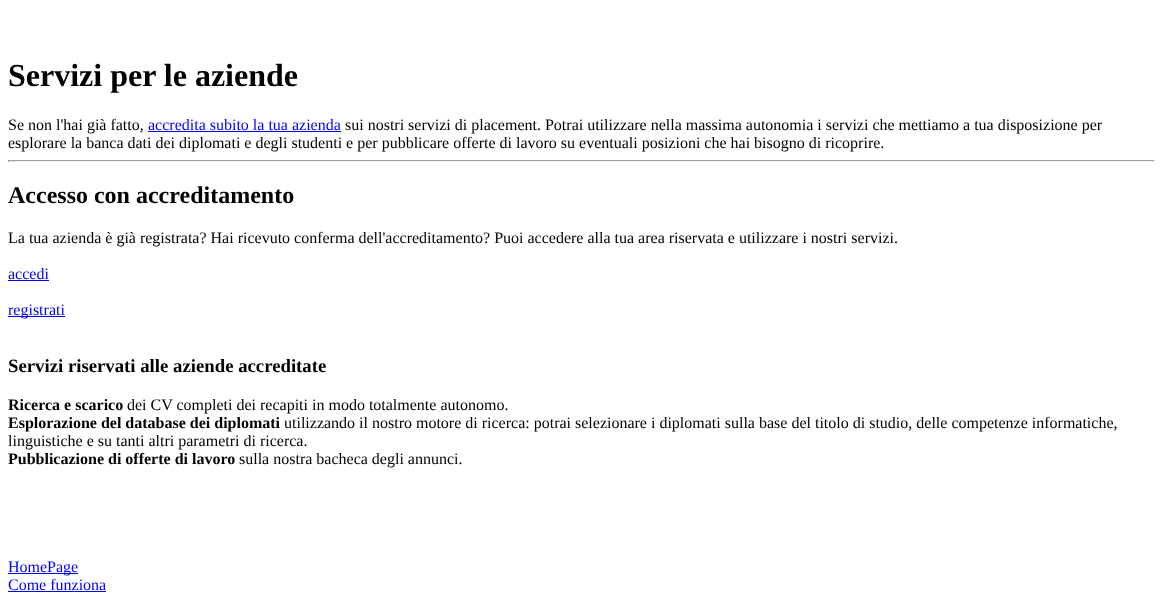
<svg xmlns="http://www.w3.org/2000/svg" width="1163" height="602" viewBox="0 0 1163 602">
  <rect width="100%" height="100%" fill="#ffffff"/>
  <text x="8" y="86" font-family="Liberation Serif" font-size="32" font-weight="bold" fill="#000000">Servizi per le aziende</text>
  <text x="8" y="130" font-family="Liberation Serif" font-size="16" fill="#000000">Se non l'hai già fatto,</text>
  <text x="148" y="130" font-family="Liberation Serif" font-size="16" fill="#0000ee">accredita subito la tua azienda</text>
  <rect x="148" y="131" width="193" height="1" fill="#0000ee"/>
  <text x="345" y="130" font-family="Liberation Serif" font-size="16" fill="#000000">sui nostri servizi di placement. Potrai utilizzare nella massima autonomia i servizi che mettiamo a tua disposizione per</text>
  <text x="8" y="148" font-family="Liberation Serif" font-size="16" fill="#000000">esplorare la banca dati dei diplomati e degli studenti e per pubblicare offerte di lavoro su eventuali posizioni che hai bisogno di ricoprire.</text>
  <rect x="8" y="160" width="1147" height="1" fill="#9f9f9f"/>
  <rect x="1154" y="160" width="1" height="2" fill="#eeeeee"/>
  <rect x="8" y="161" width="1147" height="1" fill="#eeeeee"/>
  <rect x="8" y="160" width="1" height="2" fill="#9f9f9f"/>
  <text x="8" y="203" font-family="Liberation Serif" font-size="24" font-weight="bold" fill="#000000">Accesso con accreditamento</text>
  <text x="8" y="243" font-family="Liberation Serif" font-size="16" fill="#000000">La tua azienda è già registrata? Hai ricevuto conferma dell'accreditamento? Puoi accedere alla tua area riservata e utilizzare i nostri servizi.</text>
  <text x="8" y="279" font-family="Liberation Serif" font-size="16" fill="#0000ee">accedi</text>
  <rect x="8" y="280" width="41" height="1" fill="#0000ee"/>
  <rect x="8" y="316" width="57" height="1" fill="#0000ee"/>
  <text x="8" y="315" font-family="Liberation Serif" font-size="16" fill="#0000ee">registrati</text>
  <text x="8" y="372" font-family="Liberation Serif" font-size="18.75" font-weight="bold" fill="#000000">Servizi riservati alle aziende accreditate</text>
  <text x="8" y="410" font-family="Liberation Serif" font-size="16" font-weight="bold" fill="#000000">Ricerca e scarico</text>
  <text x="127" y="410" font-family="Liberation Serif" font-size="16" fill="#000000">dei CV completi dei recapiti in modo totalmente autonomo.</text>
  <text x="8" y="428" font-family="Liberation Serif" font-size="16" font-weight="bold" fill="#000000">Esplorazione del database dei diplomati</text>
  <text x="284" y="428" font-family="Liberation Serif" font-size="16" fill="#000000">utilizzando il nostro motore di ricerca: potrai selezionare i diplomati sulla base del titolo di studio, delle competenze informatiche,</text>
  <text x="8" y="446" font-family="Liberation Serif" font-size="16" fill="#000000">linguistiche e su tanti altri parametri di ricerca.</text>
  <text x="8" y="464" font-family="Liberation Serif" font-size="16" font-weight="bold" fill="#000000">Pubblicazione di offerte di lavoro</text>
  <text x="239" y="464" font-family="Liberation Serif" font-size="16" fill="#000000">sulla nostra bacheca degli annunci.</text>
  <rect x="8" y="573" width="70" height="1" fill="#0000ee"/>
  <text x="8" y="572" font-family="Liberation Serif" font-size="16" fill="#0000ee">HomePage</text>
  <text x="8" y="590" font-family="Liberation Serif" font-size="16" fill="#0000ee">Come funziona</text>
  <rect x="8" y="591" width="98" height="1" fill="#0000ee"/>
</svg>
